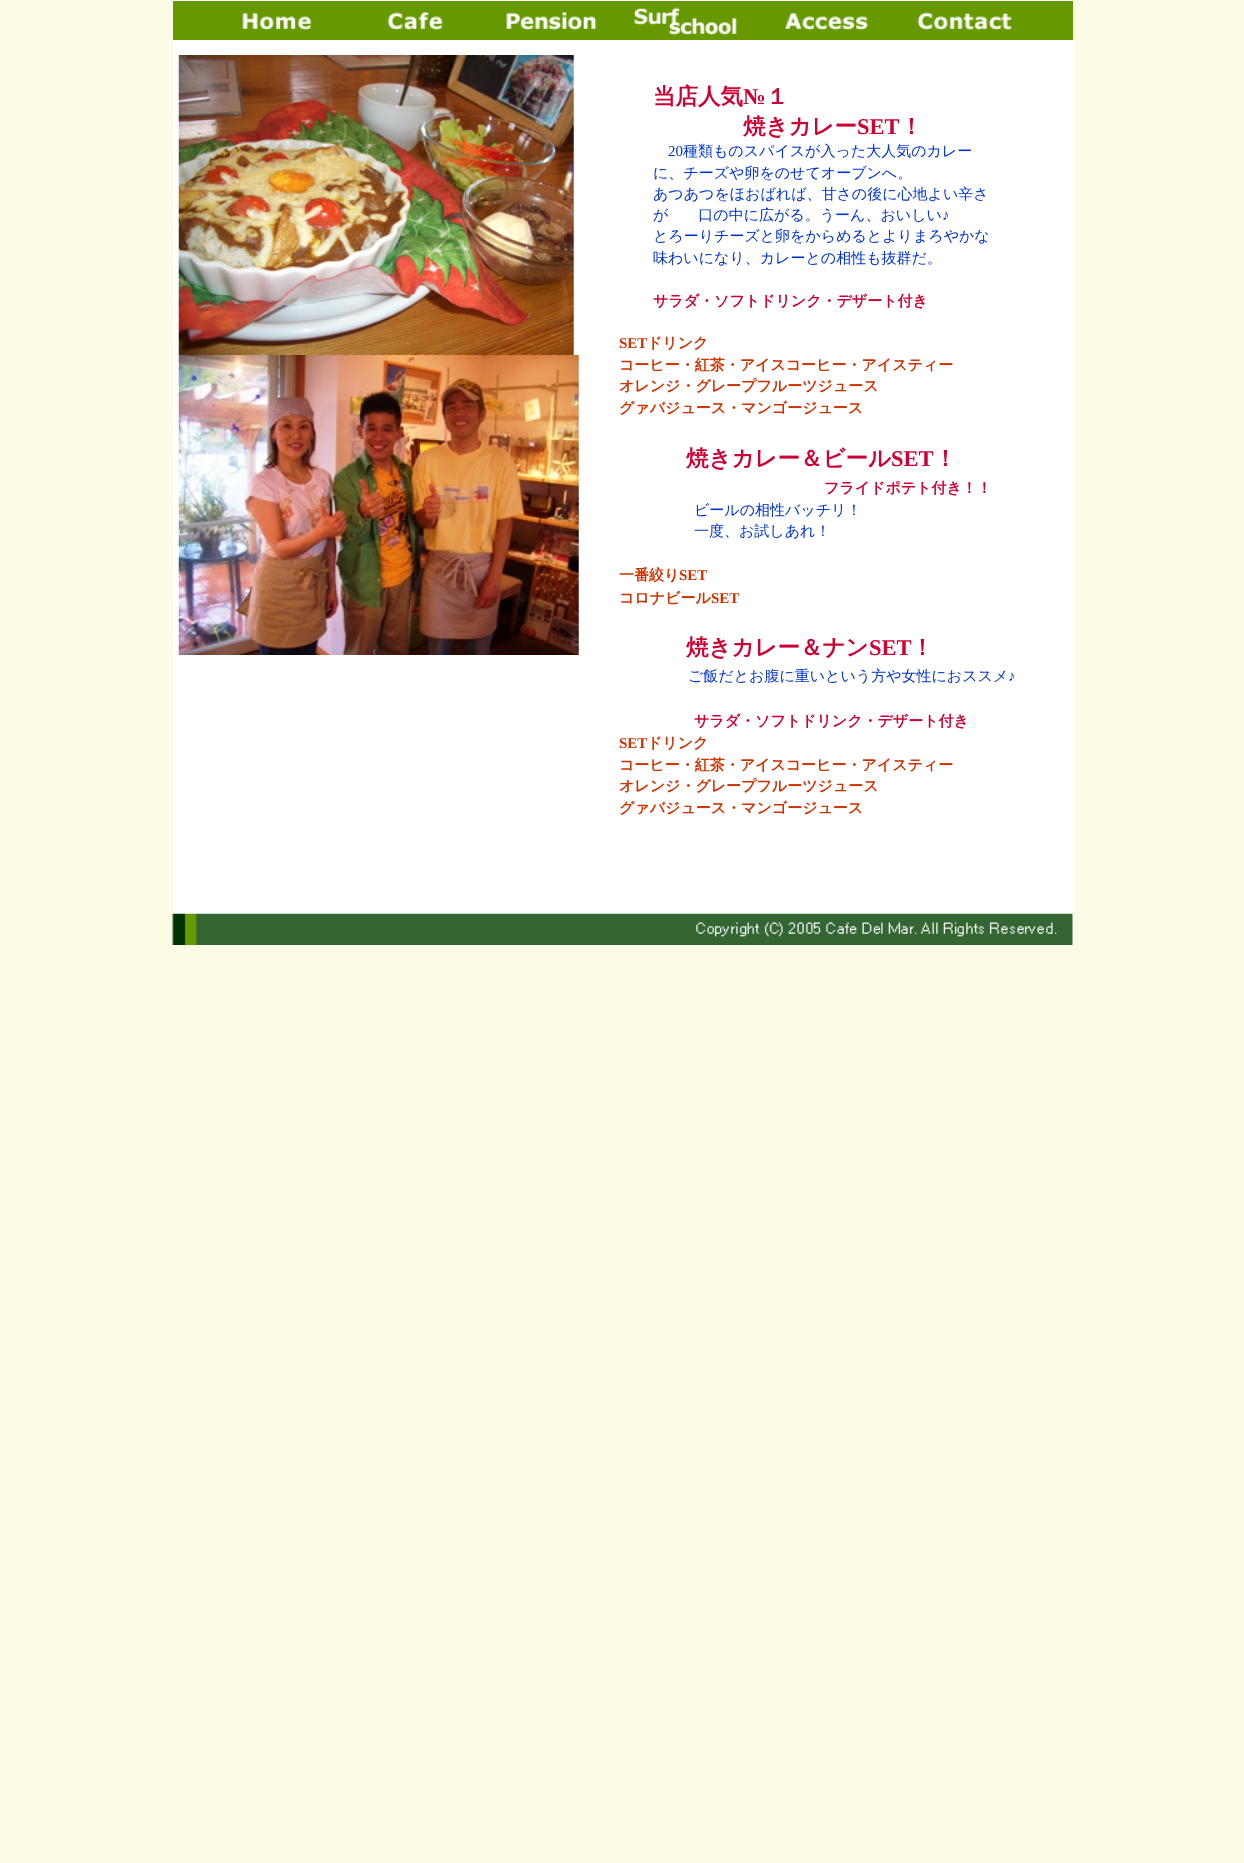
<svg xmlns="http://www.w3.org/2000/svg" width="1244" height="1863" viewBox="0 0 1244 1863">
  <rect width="100%" height="100%" fill="#fbfbe6"/>
  <rect x="173" y="0" width="901" height="945" fill="#ffffff"/>
  <rect x="173" y="1" width="900" height="39" fill="#669900"/>
  <image x="242" y="12" width="70" height="19" href="img1.png"/>
  <image x="387" y="12" width="56" height="19" href="img2.png"/>
  <image x="506" y="12" width="91" height="19" href="img3.png"/>
  <image x="633" y="7" width="104" height="29" href="img4.png"/>
  <image x="784" y="12" width="84" height="19" href="img5.png"/>
  <image x="917" y="12" width="95" height="19" href="img6.png"/>
  <image x="178" y="55" width="396" height="300" href="img7.png"/>
  <image x="178" y="355" width="401" height="300" href="img8.png"/>
  <text x="653" y="104" font-family="WenQuanYi Zen Hei" font-size="22.5" font-weight="bold" fill="#cc0033">当店人気</text>
  <text x="743" y="104" font-family="Liberation Serif" font-size="22.5" font-weight="bold" fill="#cc0033">№</text>
  <text x="766" y="104" font-family="WenQuanYi Zen Hei" font-size="22.5" font-weight="bold" fill="#cc0033">１</text>
  <text x="743" y="134" font-family="WenQuanYi Zen Hei" font-size="22.5" font-weight="bold" fill="#cc0033">焼きカレー</text>
  <text x="857" y="134" font-family="Liberation Serif" font-size="22.5" font-weight="bold" fill="#cc0033">SET</text>
  <text x="900" y="134" font-family="WenQuanYi Zen Hei" font-size="22.5" font-weight="bold" fill="#cc0033">！</text>
  <text x="668" y="156" font-family="Liberation Serif" font-size="15" fill="#0033cc">20</text>
  <text x="683" y="156" font-family="WenQuanYi Zen Hei" font-size="15" font-weight="500" fill="#0033cc">種類ものスパイスが入った大人気のカレー</text>
  <text x="653" y="178" font-family="WenQuanYi Zen Hei" font-size="15" font-weight="500" fill="#0033cc">に、チーズや卵をのせてオーブンへ。</text>
  <text x="653" y="199" font-family="WenQuanYi Zen Hei" font-size="15" font-weight="500" fill="#0033cc">あつあつをほおばれば、甘さの後に心地よい辛さ</text>
  <text x="653" y="220" font-family="WenQuanYi Zen Hei" font-size="15" font-weight="500" fill="#0033cc">が　　口の中に広がる。うーん、おいしい</text>
  <text x="942" y="220" font-family="Liberation Serif" font-size="15" fill="#0033cc">♪</text>
  <text x="653" y="241" font-family="WenQuanYi Zen Hei" font-size="15" font-weight="500" fill="#0033cc">とろーりチーズと卵をからめるとよりまろやかな</text>
  <text x="653" y="263" font-family="WenQuanYi Zen Hei" font-size="15" font-weight="500" fill="#0033cc">味わいになり、カレーとの相性も抜群だ。</text>
  <text x="653" y="306" font-family="WenQuanYi Zen Hei" font-size="15" font-weight="bold" fill="#cc0033">サラダ・ソフトドリンク・デザート付き</text>
  <text x="619" y="348" font-family="Liberation Serif" font-size="15" font-weight="bold" fill="#cc3300">SET</text>
  <text x="647" y="348" font-family="WenQuanYi Zen Hei" font-size="15" font-weight="bold" fill="#cc3300">ドリンク</text>
  <text x="619" y="370" font-family="WenQuanYi Zen Hei" font-size="15" font-weight="bold" fill="#cc3300">コーヒー・紅茶・アイスコーヒー・アイスティー</text>
  <text x="619" y="391" font-family="WenQuanYi Zen Hei" font-size="15" font-weight="bold" fill="#cc3300">オレンジ・グレープフルーツジュース</text>
  <text x="619" y="413" font-family="WenQuanYi Zen Hei" font-size="15" font-weight="bold" fill="#cc3300">グァバジュース・マンゴージュース</text>
  <text x="686" y="466" font-family="WenQuanYi Zen Hei" font-size="22.5" font-weight="bold" fill="#cc0033">焼きカレー＆ビール</text>
  <text x="891" y="466" font-family="Liberation Serif" font-size="22.5" font-weight="bold" fill="#cc0033">SET</text>
  <text x="934" y="466" font-family="WenQuanYi Zen Hei" font-size="22.5" font-weight="bold" fill="#cc0033">！</text>
  <text x="824" y="493" font-family="WenQuanYi Zen Hei" font-size="15" font-weight="bold" fill="#cc0033">フライドポテト付き！！</text>
  <text x="694" y="515" font-family="WenQuanYi Zen Hei" font-size="15" font-weight="500" fill="#0033cc">ビールの相性バッチリ！</text>
  <text x="694" y="536" font-family="WenQuanYi Zen Hei" font-size="15" font-weight="500" fill="#0033cc">一度、お試しあれ！</text>
  <text x="619" y="580" font-family="WenQuanYi Zen Hei" font-size="15" font-weight="bold" fill="#cc3300">一番絞り</text>
  <text x="679" y="580" font-family="Liberation Serif" font-size="15" font-weight="bold" fill="#cc3300">SET</text>
  <text x="619" y="603" font-family="WenQuanYi Zen Hei" font-size="15" font-weight="bold" fill="#cc3300">コロナビール</text>
  <text x="711" y="603" font-family="Liberation Serif" font-size="15" font-weight="bold" fill="#cc3300">SET</text>
  <text x="686" y="655" font-family="WenQuanYi Zen Hei" font-size="22.5" font-weight="bold" fill="#cc0033">焼きカレー＆ナン</text>
  <text x="869" y="655" font-family="Liberation Serif" font-size="22.5" font-weight="bold" fill="#cc0033">SET</text>
  <text x="911" y="655" font-family="WenQuanYi Zen Hei" font-size="22.5" font-weight="bold" fill="#cc0033">！</text>
  <text x="688" y="681" font-family="WenQuanYi Zen Hei" font-size="15" font-weight="500" fill="#0033cc">ご飯だとお腹に重いという方や女性におススメ</text>
  <text x="1008" y="681" font-family="Liberation Serif" font-size="15" fill="#0033cc">♪</text>
  <text x="694" y="726" font-family="WenQuanYi Zen Hei" font-size="15" font-weight="bold" fill="#cc0033">サラダ・ソフトドリンク・デザート付き</text>
  <text x="619" y="748" font-family="Liberation Serif" font-size="15" font-weight="bold" fill="#cc3300">SET</text>
  <text x="647" y="748" font-family="WenQuanYi Zen Hei" font-size="15" font-weight="bold" fill="#cc3300">ドリンク</text>
  <text x="619" y="770" font-family="WenQuanYi Zen Hei" font-size="15" font-weight="bold" fill="#cc3300">コーヒー・紅茶・アイスコーヒー・アイスティー</text>
  <text x="619" y="791" font-family="WenQuanYi Zen Hei" font-size="15" font-weight="bold" fill="#cc3300">オレンジ・グレープフルーツジュース</text>
  <text x="619" y="813" font-family="WenQuanYi Zen Hei" font-size="15" font-weight="bold" fill="#cc3300">グァバジュース・マンゴージュース</text>
  <image x="172" y="912" width="901" height="33" href="img9.png"/>
</svg>
